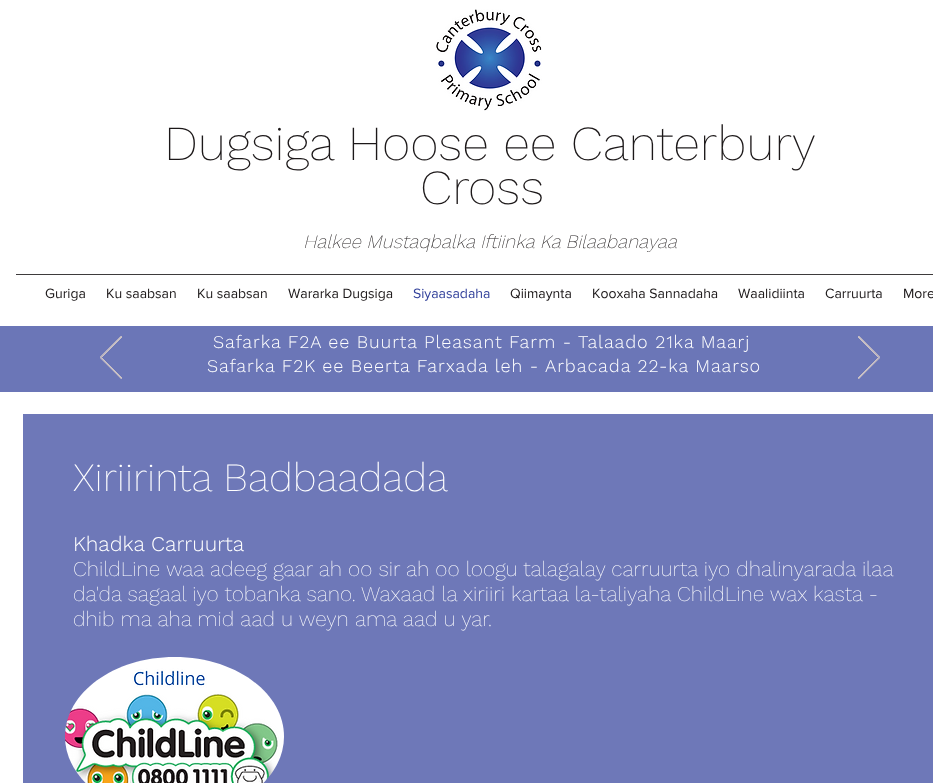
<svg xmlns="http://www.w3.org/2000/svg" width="933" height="783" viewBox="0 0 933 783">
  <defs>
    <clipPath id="clip1"><rect x="100" y="336" width="22" height="43"/></clipPath>
    <clipPath id="clip2"><rect x="858" y="336" width="22" height="43"/></clipPath>
  </defs>
  <rect width="100%" height="100%" fill="#ffffff"/>
  <image x="436" y="9" width="106" height="102" href="img1.png"/>
  <text x="164" y="160" font-family="Work Sans" font-size="49" font-weight="200" fill="#1c1819">Dugsiga Hoose ee Canterbury</text>
  <text x="420" y="204" font-family="Work Sans" font-size="49" font-weight="200" fill="#1c1819">Cross</text>
  <text x="303" y="248" font-family="Work Sans" font-size="19" font-weight="200" font-style="italic" fill="#1c1819">Halkee Mustaqbalka Iftiinka Ka Bilaabanayaa</text>
  <rect x="16" y="274" width="917" height="1" fill="#3e3b3c"/>
  <text x="45" y="298" font-family="'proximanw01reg'" font-size="14" fill="#1c1819">Guriga</text>
  <text x="106" y="298" font-family="'proximanw01reg'" font-size="14" fill="#1c1819">Ku saabsan</text>
  <text x="197" y="298" font-family="'proximanw01reg'" font-size="14" fill="#1c1819">Ku saabsan</text>
  <text x="288" y="298" font-family="'proximanw01reg'" font-size="14" fill="#1c1819">Wararka Dugsiga</text>
  <text x="413" y="298" font-family="'proximanw01reg'" font-size="14" fill="#32419b">Siyaasadaha</text>
  <text x="510" y="298" font-family="'proximanw01reg'" font-size="14" fill="#1c1819">Qiimaynta</text>
  <text x="592" y="298" font-family="'proximanw01reg'" font-size="14" fill="#1c1819">Kooxaha Sannadaha</text>
  <text x="738" y="298" font-family="'proximanw01reg'" font-size="14" fill="#1c1819">Waalidiinta</text>
  <text x="825" y="298" font-family="'proximanw01reg'" font-size="14" fill="#1c1819">Carruurta</text>
  <text x="903" y="298" font-family="'proximanw01reg'" font-size="14" fill="#1c1819">More</text>
  <rect x="0" y="326" width="933" height="66" fill="#6b76b7"/>
  <path d="M121 379L100 357L121 336L122 337L101 357L122 378Z" fill="#cac1c4"/>
  <g clip-path="url(#clip1)">
    <path d="M121.5 378.5L100 357.5L121.5 336L122 337L101.5 357.5L122 378Z" fill="none" stroke="#cac1c4"/>
  </g>
  <text x="213" y="348" font-family="Work Sans" font-size="18" font-weight="300" letter-spacing="0.9" fill="#ffffff">Safarka F2A ee Buurta Pleasant Farm - Talaado 21ka Maarj</text>
  <text x="207" y="372" font-family="Work Sans" font-size="18" font-weight="300" letter-spacing="0.9" fill="#ffffff">Safarka F2K ee Beerta Farxada leh - Arbacada 22-ka Maarso</text>
  <path d="M859 379L880 357L859 336L858 337L879 357L858 378Z" fill="#cac1c4"/>
  <g clip-path="url(#clip2)">
    <path d="M858.5 378.5L880 357.5L858.5 336L858 337L878.5 357.5L858 378Z" fill="none" stroke="#cac1c4"/>
  </g>
  <rect x="23" y="414" width="910" height="369" fill="#6e78b8"/>
  <text x="73" y="491" font-family="Work Sans" font-size="40" font-weight="200" fill="#ffffff">Xiriirinta Badbaadada</text>
  <text x="73" y="551" font-family="Work Sans" font-size="21" font-weight="300" fill="#ffffff">Khadka Carruurta</text>
  <text x="73" y="576" font-family="Work Sans" font-size="21" font-weight="200" fill="#ffffff">ChildLine waa adeeg gaar ah oo sir ah oo loogu talagalay carruurta iyo dhalinyarada ilaa</text>
  <text x="73" y="601" font-family="Work Sans" font-size="21" font-weight="200" fill="#ffffff">da'da sagaal iyo tobanka sano. Waxaad la xiriiri kartaa la-taliyaha ChildLine wax kasta -</text>
  <text x="73" y="626" font-family="Work Sans" font-size="21" font-weight="200" fill="#ffffff">dhib ma aha mid aad u weyn ama aad u yar.</text>
  <image x="65" y="657" width="219" height="126" href="img2.png"/>
</svg>
